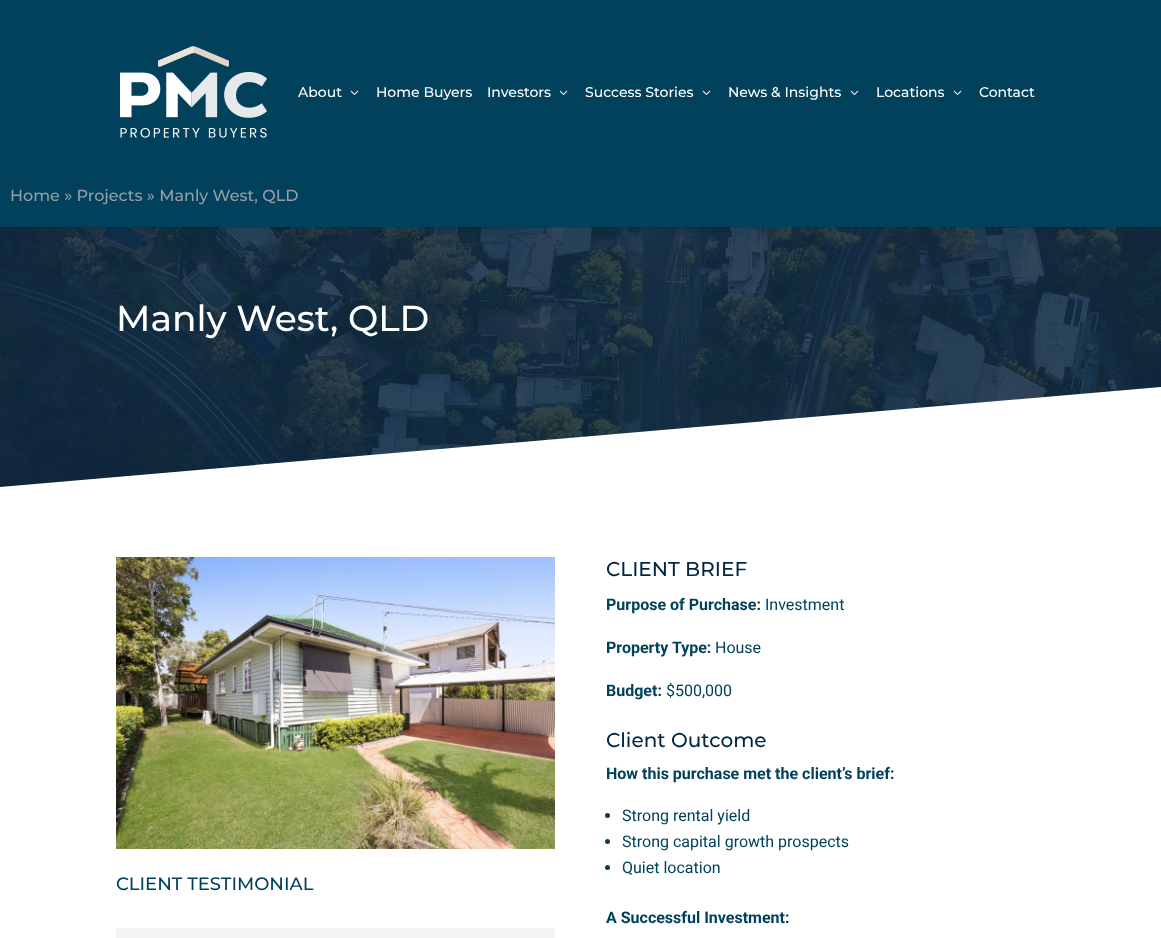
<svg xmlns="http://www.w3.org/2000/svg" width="1161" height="938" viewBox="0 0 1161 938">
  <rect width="100%" height="100%" fill="#ffffff"/>
  <image x="0" y="227" width="1161" height="260" href="img3.png"/>
  <rect x="0" y="227" width="1161" height="1" fill="#000000" fill-opacity="0.1"/>
  <rect x="0" y="0" width="1161" height="227" fill="#01415b"/>
  <image x="120" y="46" width="147" height="92" href="img1.png"/>
  <text x="298" y="97" font-family="Montserrat" font-size="14" font-weight="500" fill="#ffffff">About</text>
  <image x="350" y="90" width="9" height="5" href="img2.png"/>
  <text x="376" y="97" font-family="Montserrat" font-size="14" font-weight="500" fill="#ffffff">Home Buyers</text>
  <text x="487" y="97" font-family="Montserrat" font-size="14" font-weight="500" fill="#ffffff">Investors</text>
  <image x="559" y="90" width="9" height="5" href="img2.png"/>
  <text x="585" y="97" font-family="Montserrat" font-size="14" font-weight="500" fill="#ffffff">Success Stories</text>
  <image x="702" y="90" width="9" height="5" href="img2.png"/>
  <text x="728" y="97" font-family="Montserrat" font-size="14" font-weight="500" fill="#ffffff">News &amp; Insights</text>
  <image x="850" y="90" width="9" height="5" href="img2.png"/>
  <text x="876" y="97" font-family="Montserrat" font-size="14" font-weight="500" fill="#ffffff">Locations</text>
  <image x="953" y="90" width="9" height="5" href="img2.png"/>
  <text x="979" y="97" font-family="Montserrat" font-size="14" font-weight="500" fill="#ffffff">Contact</text>
  <text x="10" y="201" font-family="Montserrat" font-size="16" font-weight="500" fill="#959fa8">Home » Projects » Manly West, QLD</text>
  <text x="116" y="331" font-family="Montserrat" font-size="36" font-weight="500" fill="#ffffff">Manly West, QLD</text>
  <path d="M1161 387V487H0Z" fill="#ffffff"/>
  <image x="116" y="557" width="439" height="292" href="img4.png"/>
  <text x="116" y="890" font-family="Montserrat" font-size="18" font-weight="500" fill="#01415b">CLIENT TESTIMONIAL</text>
  <rect x="116" y="928" width="439" height="10" fill="#f5f5f5"/>
  <text x="606" y="576" font-family="Montserrat" font-size="20" font-weight="500" fill="#002842">CLIENT BRIEF</text>
  <text x="606" y="610" font-family="Roboto" font-size="16" font-weight="bold" fill="#01415b">Purpose of Purchase:</text>
  <text x="765" y="610" font-family="Roboto" font-size="16" fill="#01415b">Investment</text>
  <text x="606" y="653" font-family="Roboto" font-size="16" font-weight="bold" fill="#01415b">Property Type:</text>
  <text x="715" y="653" font-family="Roboto" font-size="16" fill="#01415b">House</text>
  <text x="606" y="696" font-family="Roboto" font-size="16" font-weight="bold" fill="#01415b">Budget:</text>
  <text x="666" y="696" font-family="Roboto" font-size="16" fill="#01415b">$500,000</text>
  <text x="606" y="747" font-family="Montserrat" font-size="20" font-weight="500" fill="#002842">Client Outcome</text>
  <text x="606" y="779" font-family="Roboto" font-size="16" font-weight="bold" fill="#01415b">How this purchase met the client’s brief:</text>
  <circle cx="607.5" cy="815.5" r="2.5" fill="#01415b"/>
  <text x="622" y="821" font-family="Roboto" font-size="16" fill="#01415b">Strong rental yield</text>
  <circle cx="607.5" cy="841.5" r="2.5" fill="#01415b"/>
  <text x="622" y="847" font-family="Roboto" font-size="16" fill="#01415b">Strong capital growth prospects</text>
  <circle cx="607.5" cy="867.5" r="2.5" fill="#01415b"/>
  <text x="622" y="873" font-family="Roboto" font-size="16" fill="#01415b">Quiet location</text>
  <text x="606" y="923" font-family="Roboto" font-size="16" font-weight="bold" fill="#01415b">A Successful Investment:</text>
</svg>
